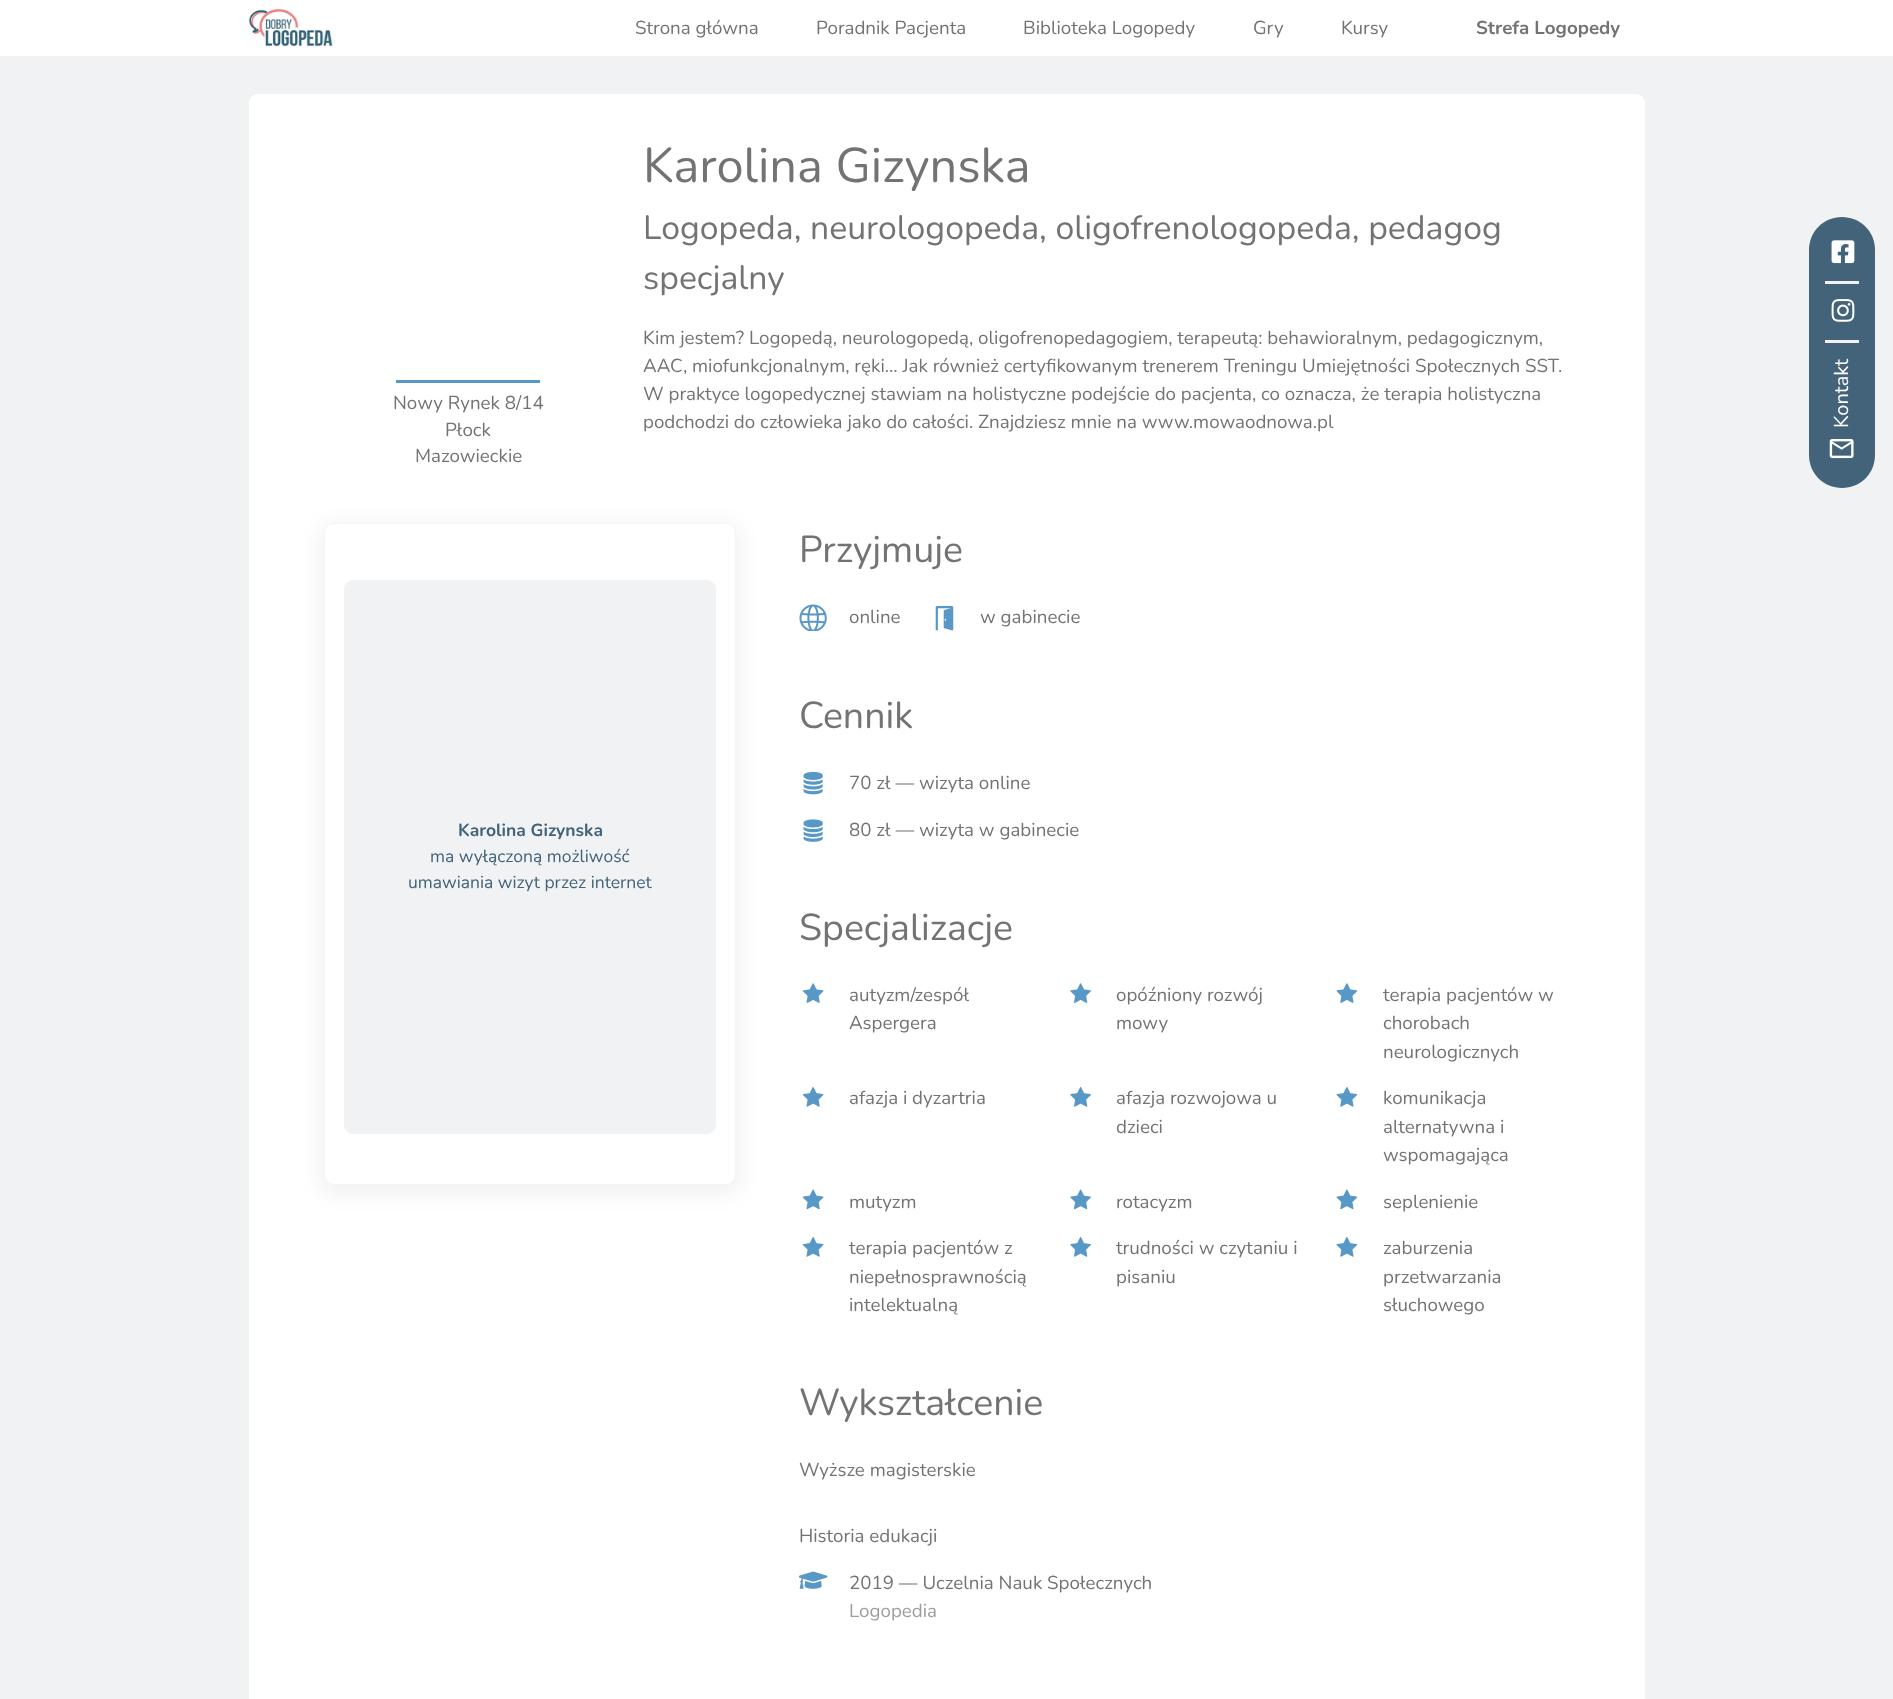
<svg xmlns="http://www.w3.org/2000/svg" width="1893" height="1699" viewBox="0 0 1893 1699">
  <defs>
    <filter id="blur1" x="-50%" y="-200%" width="200%" height="500%"><feGaussianBlur stdDeviation="9.5"/></filter>
  </defs>
  <rect width="100%" height="100%" fill="#ffffff"/>
  <image x="248" y="8" width="85" height="39" href="img1.png"/>
  <text x="635" y="34" font-family="Nunito" font-size="18.75" fill="#737373">Strona główna</text>
  <text x="816" y="34" font-family="Nunito" font-size="18.75" fill="#737373">Poradnik Pacjenta</text>
  <text x="1023" y="34" font-family="Nunito" font-size="18.75" fill="#737373">Biblioteka Logopedy</text>
  <text x="1253" y="34" font-family="Nunito" font-size="18.75" fill="#737373">Gry</text>
  <text x="1341" y="34" font-family="Nunito" font-size="18.75" fill="#737373">Kursy</text>
  <text x="1476" y="34" font-family="Nunito" font-size="18.75" font-weight="bold" fill="#737373">Strefa Logopedy</text>
  <rect x="0" y="56" width="1893" height="1643" fill="#f0f2f3"/>
  <rect x="249" y="94" width="1396" height="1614" rx="9" fill="#ffffff"/>
  <rect x="396" y="380" width="144" height="3" fill="#5898c7"/>
  <text x="393" y="409" font-family="Nunito" font-size="18.75" fill="#737373">Nowy Rynek 8/14</text>
  <text x="445" y="436" font-family="Nunito" font-size="18.75" fill="#737373">Płock</text>
  <text x="415" y="462" font-family="Nunito" font-size="18.75" fill="#737373">Mazowieckie</text>
  <text x="643" y="182" font-family="Nunito" font-size="48.75" fill="#737373">Karolina Gizynska</text>
  <text x="643" y="239" font-family="Nunito" font-size="33.75" fill="#737373">Logopeda, neurologopeda, oligofrenologopeda, pedagog</text>
  <text x="643" y="289" font-family="Nunito" font-size="33.75" fill="#737373">specjalny</text>
  <text x="643" y="344" font-family="Nunito" font-size="18.75" fill="#737373">Kim jestem? Logopedą, neurologopedą, oligofrenopedagogiem, terapeutą: behawioralnym, pedagogicznym,</text>
  <text x="643" y="372" font-family="Nunito" font-size="18.75" fill="#737373">AAC, miofunkcjonalnym, ręki… Jak również certyfikowanym trenerem Treningu Umiejętności Społecznych SST.</text>
  <text x="643" y="400" font-family="Nunito" font-size="18.75" fill="#737373">W praktyce logopedycznej stawiam na holistyczne podejście do pacjenta, co oznacza, że terapia holistyczna</text>
  <text x="643" y="428" font-family="Nunito" font-size="18.75" fill="#737373">podchodzi do człowieka jako do całości. Znajdziesz mnie na www.mowaodnowa.pl</text>
  <rect x="319" y="523" width="422" height="672" rx="15" fill="#000000" fill-opacity="0.05" filter="url(#blur1)"/>
  <rect x="324.5" y="523.5" width="411" height="661" rx="9.5" fill="#ffffff" stroke="#f5f5f5"/>
  <rect x="344" y="580" width="372" height="554" rx="9" fill="#f0f2f3"/>
  <text x="458" y="836" font-family="Nunito" font-size="17.5" font-weight="bold" fill="#42637a">Karolina Gizynska</text>
  <text x="430" y="862" font-family="Nunito" font-size="17.5" fill="#42637a">ma wyłączoną możliwość</text>
  <text x="408" y="888" font-family="Nunito" font-size="17.5" fill="#42637a">umawiania wizyt przez internet</text>
  <text x="799" y="562" font-family="Nunito" font-size="37.5" fill="#737373">Przyjmuje</text>
  <image x="799" y="604" width="28" height="27" href="img2.png"/>
  <text x="849" y="623" font-family="Nunito" font-size="18.75" fill="#737373">online</text>
  <image x="935" y="606" width="19" height="25" href="img3.png"/>
  <text x="980" y="623" font-family="Nunito" font-size="18.75" fill="#737373">w gabinecie</text>
  <text x="799" y="728" font-family="Nunito" font-size="37.5" fill="#737373">Cennik</text>
  <image x="803" y="771" width="20" height="24" href="img4.png"/>
  <text x="849" y="789" font-family="Nunito" font-size="18.75" fill="#737373">70 zł — wizyta online</text>
  <image x="803" y="819" width="20" height="23" href="img5.png"/>
  <text x="849" y="836" font-family="Nunito" font-size="18.75" fill="#737373">80 zł — wizyta w gabinecie</text>
  <text x="799" y="940" font-family="Nunito" font-size="37.5" fill="#737373">Specjalizacje</text>
  <image x="802" y="983" width="22" height="20" href="img6.png"/>
  <text x="849" y="1001" font-family="Nunito" font-size="18.75" fill="#737373">autyzm/zespół</text>
  <text x="849" y="1029" font-family="Nunito" font-size="18.75" fill="#737373">Aspergera</text>
  <image x="1070" y="983" width="21" height="20" href="img7.png"/>
  <text x="1116" y="1001" font-family="Nunito" font-size="18.75" fill="#737373">opóźniony rozwój</text>
  <text x="1116" y="1029" font-family="Nunito" font-size="18.75" fill="#737373">mowy</text>
  <image x="1336" y="983" width="22" height="20" href="img8.png"/>
  <text x="1383" y="1001" font-family="Nunito" font-size="18.75" fill="#737373">terapia pacjentów w</text>
  <text x="1383" y="1029" font-family="Nunito" font-size="18.75" fill="#737373">chorobach</text>
  <text x="1383" y="1058" font-family="Nunito" font-size="18.75" fill="#737373">neurologicznych</text>
  <image x="802" y="1087" width="22" height="20" href="img9.png"/>
  <text x="849" y="1104" font-family="Nunito" font-size="18.75" fill="#737373">afazja i dyzartria</text>
  <image x="1070" y="1087" width="21" height="20" href="img10.png"/>
  <text x="1116" y="1104" font-family="Nunito" font-size="18.75" fill="#737373">afazja rozwojowa u</text>
  <text x="1116" y="1133" font-family="Nunito" font-size="18.75" fill="#737373">dzieci</text>
  <image x="1336" y="1087" width="22" height="20" href="img11.png"/>
  <text x="1383" y="1104" font-family="Nunito" font-size="18.75" fill="#737373">komunikacja</text>
  <text x="1383" y="1133" font-family="Nunito" font-size="18.75" fill="#737373">alternatywna i</text>
  <text x="1383" y="1161" font-family="Nunito" font-size="18.75" fill="#737373">wspomagająca</text>
  <image x="802" y="1189" width="22" height="21" href="img12.png"/>
  <text x="849" y="1208" font-family="Nunito" font-size="18.75" fill="#737373">mutyzm</text>
  <image x="1070" y="1189" width="21" height="21" href="img13.png"/>
  <text x="1116" y="1208" font-family="Nunito" font-size="18.75" fill="#737373">rotacyzm</text>
  <image x="1336" y="1189" width="22" height="21" href="img14.png"/>
  <text x="1383" y="1208" font-family="Nunito" font-size="18.75" fill="#737373">seplenienie</text>
  <image x="802" y="1237" width="22" height="20" href="img9.png"/>
  <text x="849" y="1254" font-family="Nunito" font-size="18.75" fill="#737373">terapia pacjentów z</text>
  <text x="849" y="1283" font-family="Nunito" font-size="18.75" fill="#737373">niepełnosprawnością</text>
  <text x="849" y="1311" font-family="Nunito" font-size="18.75" fill="#737373">intelektualną</text>
  <image x="1070" y="1237" width="21" height="20" href="img10.png"/>
  <text x="1116" y="1254" font-family="Nunito" font-size="18.75" fill="#737373">trudności w czytaniu i</text>
  <text x="1116" y="1283" font-family="Nunito" font-size="18.75" fill="#737373">pisaniu</text>
  <image x="1336" y="1237" width="22" height="20" href="img11.png"/>
  <text x="1383" y="1254" font-family="Nunito" font-size="18.75" fill="#737373">zaburzenia</text>
  <text x="1383" y="1283" font-family="Nunito" font-size="18.75" fill="#737373">przetwarzania</text>
  <text x="1383" y="1311" font-family="Nunito" font-size="18.75" fill="#737373">słuchowego</text>
  <text x="799" y="1415" font-family="Nunito" font-size="37.5" fill="#737373">Wykształcenie</text>
  <text x="799" y="1476" font-family="Nunito" font-size="18.75" fill="#737373">Wyższe magisterskie</text>
  <text x="799" y="1542" font-family="Nunito" font-size="18.75" fill="#737373">Historia edukacji</text>
  <image x="799" y="1571" width="29" height="18" href="img15.png"/>
  <text x="849" y="1589" font-family="Nunito" font-size="18.75" fill="#737373">2019 — Uczelnia Nauk Społecznych</text>
  <text x="849" y="1617" font-family="Nunito" font-size="18.75" fill="#9d9d9d">Logopedia</text>
  <path d="M1809 455V250C1809 231 1824 217 1842 217C1860 217 1875 231 1875 250V455C1875 474 1860 488 1842 488C1824 488 1809 474 1809 455Z" fill="#42637a"/>
  <image x="1831" y="240" width="24" height="24" href="img16.png"/>
  <rect x="1825" y="281" width="34" height="3" fill="#f0f2f3"/>
  <image x="1831" y="299" width="24" height="23" href="img17.png"/>
  <rect x="1825" y="340" width="34" height="3" fill="#f0f2f3"/>
  <text x="1848" y="428" transform="rotate(-90 1848 428)" font-family="Nunito" font-size="20" fill="#ffffff">Kontakt</text>
  <image x="1829" y="439" width="25" height="20" href="img18.png"/>
</svg>
